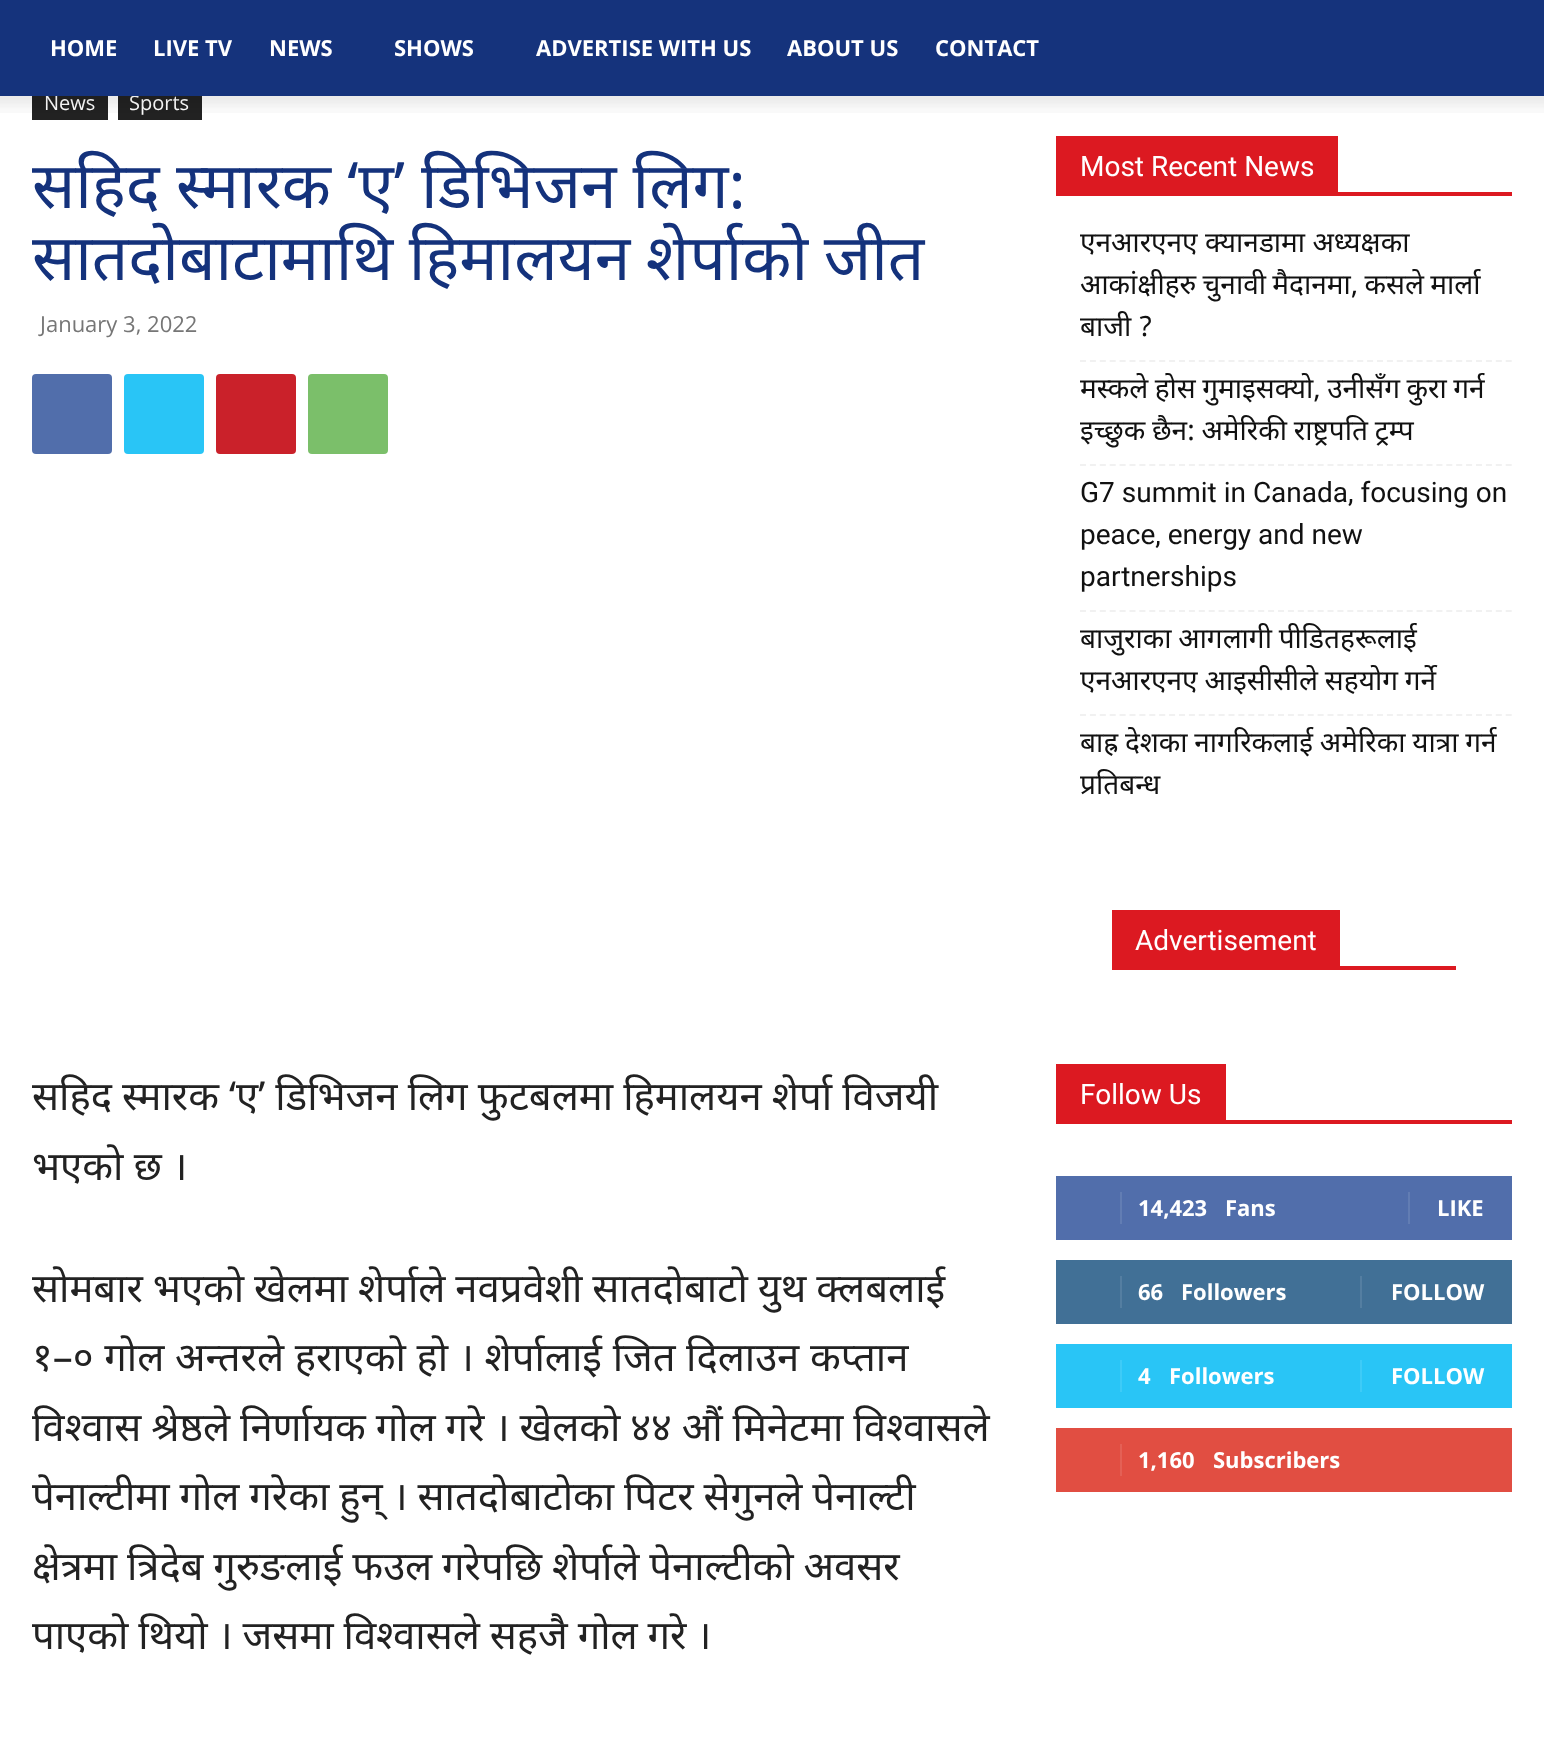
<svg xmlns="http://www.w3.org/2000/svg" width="1544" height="1751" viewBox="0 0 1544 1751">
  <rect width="100%" height="100%" fill="#ffffff"/>
  <rect x="32" y="96" width="76" height="24" fill="#222222"/>
  <text x="44" y="110" font-family="Open Sans" font-size="20" fill="#ffffff">News</text>
  <rect x="118" y="96" width="84" height="24" fill="#222222"/>
  <text x="129" y="110" font-family="Open Sans" font-size="20" fill="#ffffff">Sports</text>
  <rect x="0" y="0" width="1544" height="96" fill="#15337c"/>
  <text x="50" y="56" font-family="Open Sans" font-size="22" font-weight="bold" fill="#ffffff">HOME</text>
  <text x="153" y="56" font-family="Open Sans" font-size="22" font-weight="bold" fill="#ffffff">LIVE TV</text>
  <text x="269" y="56" font-family="Open Sans" font-size="22" font-weight="bold" fill="#ffffff">NEWS</text>
  <text x="394" y="56" font-family="Open Sans" font-size="22" font-weight="bold" fill="#ffffff">SHOWS</text>
  <text x="536" y="56" font-family="Open Sans" font-size="22" font-weight="bold" fill="#ffffff">ADVERTISE WITH US</text>
  <text x="787" y="56" font-family="Open Sans" font-size="22" font-weight="bold" fill="#ffffff">ABOUT US</text>
  <text x="935" y="56" font-family="Open Sans" font-size="22" font-weight="bold" fill="#ffffff">CONTACT</text>
  <image x="0" y="96" width="1544" height="17" href="img1.png"/>
  <text x="32" y="208" word-spacing="-0.5" font-family="Noto Sans" font-size="64" fill="#14327c">सहिद स्मारक ‘ए’ डिभिजन लिग:</text>
  <text x="32" y="280" word-spacing="-1" font-family="Noto Sans" font-size="64" fill="#14327c">सातदोबाटामाथि हिमालयन शेर्पाको जीत</text>
  <text x="40" y="332" font-family="Open Sans" font-size="22" fill="#767676">January 3, 2022</text>
  <rect x="32" y="374" width="80" height="80" rx="4" fill="#516eab"/>
  <rect x="124" y="374" width="80" height="80" rx="4" fill="#29c5f6"/>
  <rect x="216" y="374" width="80" height="80" rx="4" fill="#ca212a"/>
  <rect x="308" y="374" width="80" height="80" rx="4" fill="#7bbf6a"/>
  <text x="32" y="1110" word-spacing="-0.25" font-family="Noto Sans" font-size="40" fill="#222222">सहिद स्मारक ‘ए’ डिभिजन लिग फुटबलमा हिमालयन शेर्पा विजयी</text>
  <text x="32" y="1180" font-family="Noto Sans" font-size="40" fill="#222222">भएको छ ।</text>
  <text x="32" y="1302" word-spacing="-0.5" font-family="Noto Sans" font-size="40" fill="#222222">सोमबार भएको खेलमा शेर्पाले नवप्रवेशी सातदोबाटो युथ क्लबलाई</text>
  <text x="32" y="1371" word-spacing="0.25" font-family="Noto Sans" font-size="40" fill="#222222">१–० गोल अन्तरले हराएको हो । शेर्पालाई जित दिलाउन कप्तान</text>
  <text x="32" y="1441" word-spacing="-0.5" font-family="Noto Sans" font-size="40" fill="#222222">विश्वास श्रेष्ठले निर्णायक गोल गरे । खेलको ४४ औं मिनेटमा विश्वासले</text>
  <text x="32" y="1510" word-spacing="-0.5" font-family="Noto Sans" font-size="40" fill="#222222">पेनाल्टीमा गोल गरेका हुन् । सातदोबाटोका पिटर सेगुनले पेनाल्टी</text>
  <text x="32" y="1580" word-spacing="-0.5" font-family="Noto Sans" font-size="40" fill="#222222">क्षेत्रमा त्रिदेब गुरुङलाई फउल गरेपछि शेर्पाले पेनाल्टीको अवसर</text>
  <text x="32" y="1649" word-spacing="-0.5" font-family="Noto Sans" font-size="40" fill="#222222">पाएको थियो । जसमा विश्वासले सहजै गोल गरे ।</text>
  <rect x="1056" y="192" width="456" height="4" fill="#dc1921"/>
  <rect x="1056" y="136" width="282" height="56" fill="#dc1921"/>
  <text x="1080" y="176" font-family="Roboto" font-size="28" fill="#ffffff">Most Recent News</text>
  <path d="M1080 361H1512" fill="none" stroke="#f1f1f1" stroke-width="2" stroke-dasharray="6 3.9"/>
  <text x="1080" y="252" font-family="Noto Sans" font-size="28" fill="#111111">एनआरएनए क्यानडामा अध्यक्षका</text>
  <text x="1080" y="294" word-spacing="-1" font-family="Noto Sans" font-size="28" fill="#111111">आकांक्षीहरु चुनावी मैदानमा, कसले मार्ला</text>
  <text x="1080" y="336" word-spacing="1" font-family="Noto Sans" font-size="28" fill="#111111">बाजी ?</text>
  <path d="M1080 465H1512" fill="none" stroke="#f1f1f1" stroke-width="2" stroke-dasharray="6 3.9"/>
  <text x="1080" y="398" word-spacing="-0.75" font-family="Noto Sans" font-size="28" fill="#111111">मस्कले होस गुमाइसक्यो, उनीसँग कुरा गर्न</text>
  <text x="1080" y="440" word-spacing="-0.5" font-family="Noto Sans" font-size="28" fill="#111111">इच्छुक छैन: अमेरिकी राष्ट्रपति ट्रम्प</text>
  <path d="M1080 611H1512" fill="none" stroke="#f1f1f1" stroke-width="2" stroke-dasharray="6 3.9"/>
  <text x="1080" y="502" font-family="Roboto" font-size="28" fill="#111111">G7 summit in Canada, focusing on</text>
  <text x="1080" y="544" font-family="Roboto" font-size="28" fill="#111111">peace, energy and new</text>
  <text x="1080" y="586" font-family="Roboto" font-size="28" fill="#111111">partnerships</text>
  <path d="M1080 715H1512" fill="none" stroke="#f1f1f1" stroke-width="2" stroke-dasharray="6 3.9"/>
  <text x="1080" y="648" word-spacing="-0.5" font-family="Noto Sans" font-size="28" fill="#111111">बाजुराका आगलागी पीडितहरूलाई</text>
  <text x="1080" y="690" word-spacing="-0.5" font-family="Noto Sans" font-size="28" fill="#111111">एनआरएनए आइसीसीले सहयोग गर्ने</text>
  <text x="1080" y="752" word-spacing="-0.5" font-family="Noto Sans" font-size="28" fill="#111111">बाह्र देशका नागरिकलाई अमेरिका यात्रा गर्न</text>
  <text x="1080" y="794" font-family="Noto Sans" font-size="28" fill="#111111">प्रतिबन्ध</text>
  <rect x="1112" y="966" width="344" height="4" fill="#dc1921"/>
  <rect x="1112" y="910" width="228" height="56" fill="#dc1921"/>
  <text x="1135" y="950" font-family="Roboto" font-size="28" fill="#ffffff">Advertisement</text>
  <rect x="1056" y="1120" width="456" height="4" fill="#dc1921"/>
  <rect x="1056" y="1064" width="170" height="56" fill="#dc1921"/>
  <text x="1080" y="1104" font-family="Roboto" font-size="28" fill="#ffffff">Follow Us</text>
  <rect x="1056" y="1176" width="456" height="64" fill="#516eab"/>
  <rect x="1120" y="1192" width="2" height="32" fill="#627db3"/>
  <text x="1138" y="1216" font-family="Open Sans" font-size="22" font-weight="bold" fill="#ffffff">14,423</text>
  <text x="1225" y="1216" font-family="Open Sans" font-size="22" font-weight="bold" fill="#ffffff">Fans</text>
  <rect x="1408" y="1192" width="2" height="32" fill="#627db3"/>
  <text x="1437" y="1216" font-family="Open Sans" font-size="22" font-weight="bold" fill="#ffffff">LIKE</text>
  <rect x="1056" y="1260" width="456" height="64" fill="#417096"/>
  <rect x="1120" y="1276" width="2" height="32" fill="#547ea1"/>
  <text x="1138" y="1300" font-family="Open Sans" font-size="22" font-weight="bold" fill="#ffffff">66</text>
  <text x="1181" y="1300" font-family="Open Sans" font-size="22" font-weight="bold" fill="#ffffff">Followers</text>
  <rect x="1360" y="1276" width="2" height="32" fill="#547ea1"/>
  <text x="1391" y="1300" font-family="Open Sans" font-size="22" font-weight="bold" fill="#ffffff">FOLLOW</text>
  <rect x="1056" y="1344" width="456" height="64" fill="#29c5f6"/>
  <rect x="1120" y="1360" width="2" height="32" fill="#3ecbf7"/>
  <text x="1138" y="1384" font-family="Open Sans" font-size="22" font-weight="bold" fill="#ffffff">4</text>
  <text x="1169" y="1384" font-family="Open Sans" font-size="22" font-weight="bold" fill="#ffffff">Followers</text>
  <rect x="1360" y="1360" width="2" height="32" fill="#3ecbf7"/>
  <text x="1391" y="1384" font-family="Open Sans" font-size="22" font-weight="bold" fill="#ffffff">FOLLOW</text>
  <rect x="1056" y="1428" width="456" height="64" fill="#e14e42"/>
  <rect x="1120" y="1444" width="2" height="32" fill="#e46055"/>
  <text x="1138" y="1468" font-family="Open Sans" font-size="22" font-weight="bold" fill="#ffffff">1,160</text>
  <text x="1213" y="1468" font-family="Open Sans" font-size="22" font-weight="bold" fill="#ffffff">Subscribers</text>
</svg>
